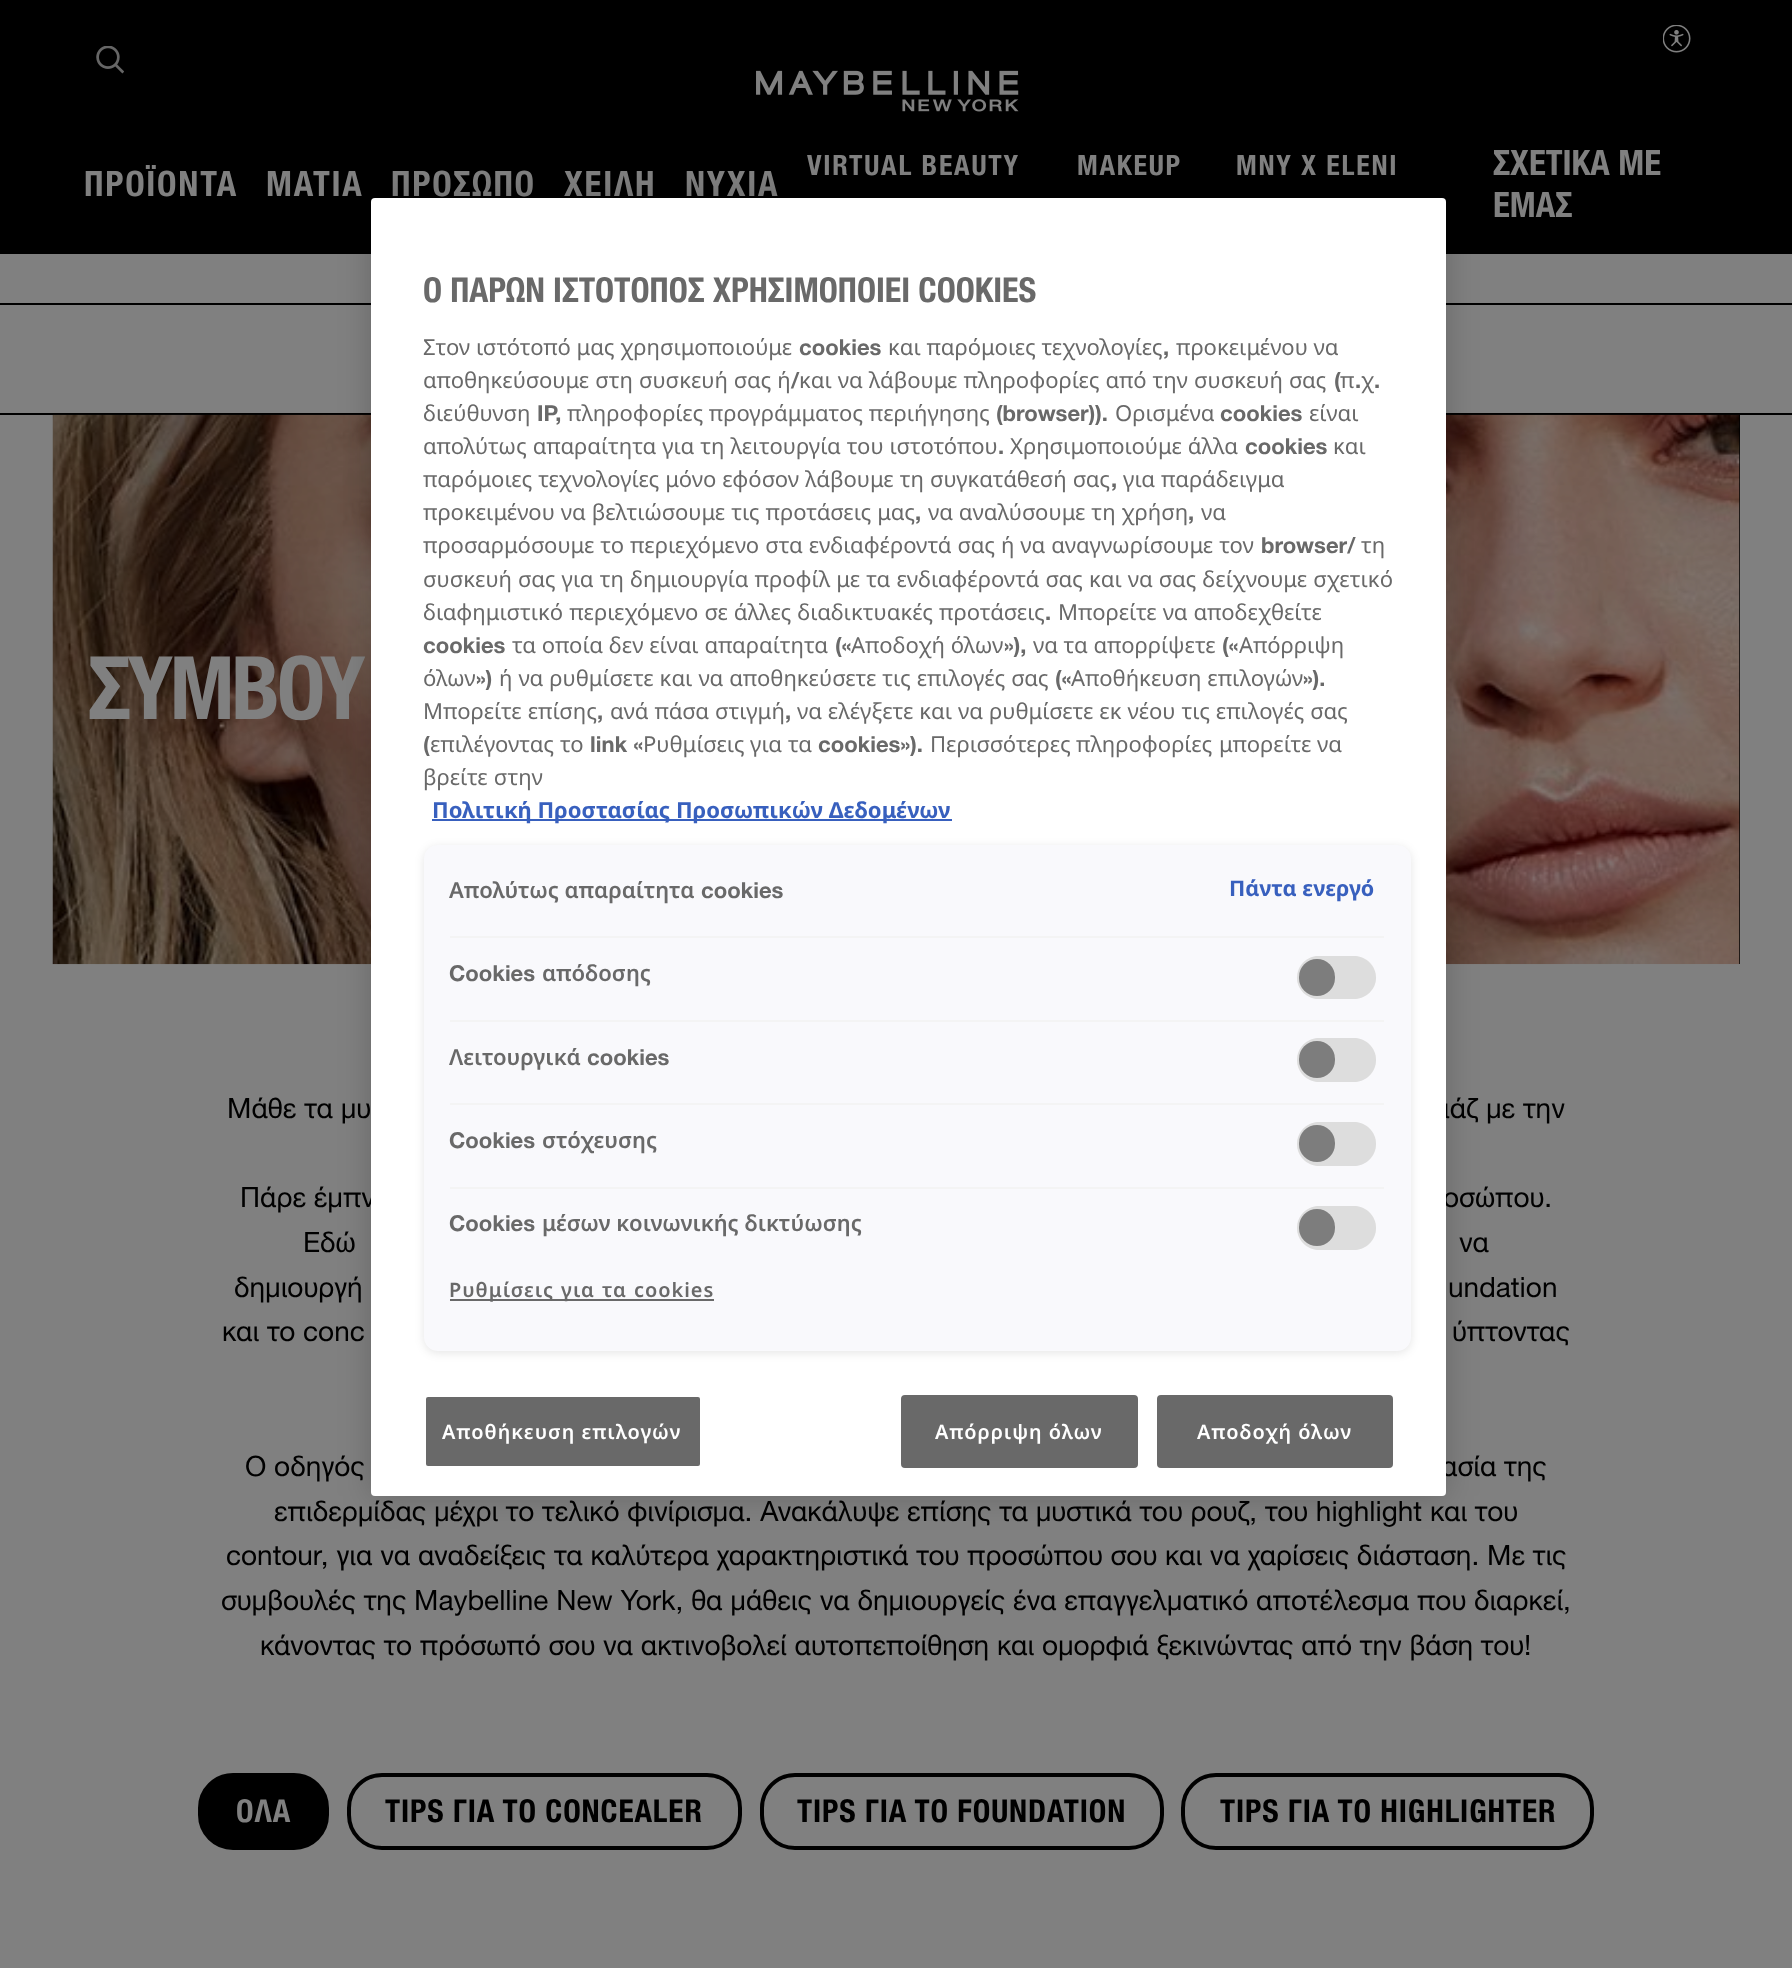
<svg xmlns="http://www.w3.org/2000/svg" width="1792" height="1968" viewBox="0 0 1792 1968">
  <defs>
    <filter id="blur1" x="-50%" y="-200%" width="200%" height="500%"><feGaussianBlur stdDeviation="16"/></filter>
    <filter id="blur2" x="-50%" y="-200%" width="200%" height="500%"><feGaussianBlur stdDeviation="5"/></filter>
  </defs>
  <rect width="100%" height="100%" fill="#808080"/>
  <rect x="0" y="0" width="1792" height="254" fill="#000000"/>
  <image x="96" y="46" width="28" height="28" href="img1.png"/>
  <image x="756" y="70" width="263" height="42" href="img2.png"/>
  <image x="1663" y="25" width="28" height="28" href="img3.png"/>
  <text x="84" y="196" font-family="'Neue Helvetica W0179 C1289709'" font-size="35" font-weight="bold" letter-spacing="1.75" fill="#808080">ΠΡΟΪΟΝΤΑ</text>
  <text x="266" y="196" font-family="'Neue Helvetica W0179 C1289709'" font-size="35" font-weight="bold" letter-spacing="1.75" fill="#808080">ΜΑΤΙΑ</text>
  <text x="391" y="196" font-family="'Neue Helvetica W0179 C1289709'" font-size="35" font-weight="bold" letter-spacing="1.75" fill="#808080">ΠΡΟΣΩΠΟ</text>
  <text x="564" y="196" font-family="'Neue Helvetica W0179 C1289709'" font-size="35" font-weight="bold" letter-spacing="1.75" fill="#808080">ΧΕΙΛΗ</text>
  <text x="685" y="196" font-family="'Neue Helvetica W0179 C1289709'" font-size="35" font-weight="bold" letter-spacing="1.75" fill="#808080">ΝΥΧΙΑ</text>
  <text x="807" y="175" font-family="'Neue Helvetica W0179 C1289709'" font-size="28" font-weight="bold" letter-spacing="1.75" fill="#808080">VIRTUAL BEAUTY</text>
  <text x="1077" y="175" font-family="'Neue Helvetica W0179 C1289709'" font-size="28" font-weight="bold" letter-spacing="1.75" fill="#808080">MAKEUP</text>
  <text x="1236" y="175" font-family="'Neue Helvetica W0179 C1289709'" font-size="28" font-weight="bold" letter-spacing="1.75" fill="#808080">MNY X ELENI</text>
  <text x="1493" y="175" font-family="'Neue Helvetica W0179 C1289709'" font-size="35" font-weight="bold" fill="#808080">ΣΧΕΤΙΚΑ ΜΕ</text>
  <text x="1493" y="217" font-family="'Neue Helvetica W0179 C1289709'" font-size="35" font-weight="bold" fill="#808080">ΕΜΑΣ</text>
  <rect x="0" y="303" width="1792" height="2" fill="#000000"/>
  <rect x="0" y="413" width="1792" height="2" fill="#000000"/>
  <rect x="1739" y="415" width="1" height="549" fill="#000000"/>
  <image x="52" y="414" width="1688" height="551" href="img4.png"/>
  <text x="88" y="719" font-family="'Neue Helvetica W0179 C1289709'" font-size="87.5" font-weight="bold" letter-spacing="-3.25" fill="#808080">ΣΥΜΒΟΥ</text>
  <text x="227" y="1118" font-family="'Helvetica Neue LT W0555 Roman'" font-size="28" fill="#000000">Μάθε τα μυ</text>
  <text x="1443" y="1118" font-family="'Helvetica Neue LT W0555 Roman'" font-size="28" fill="#000000">ιάζ με την</text>
  <text x="240" y="1207" font-family="'Helvetica Neue LT W0555 Roman'" font-size="28" fill="#000000">Πάρε έμπν</text>
  <text x="1443" y="1207" font-family="'Helvetica Neue LT W0555 Roman'" font-size="28" fill="#000000">οσώπου.</text>
  <text x="303" y="1252" font-family="'Helvetica Neue LT W0555 Roman'" font-size="28" fill="#000000">Εδώ</text>
  <text x="1459" y="1252" font-family="'Helvetica Neue LT W0555 Roman'" font-size="28" fill="#000000">να</text>
  <text x="234" y="1297" font-family="'Helvetica Neue LT W0555 Roman'" font-size="28" fill="#000000">δημιουργή</text>
  <text x="1448" y="1297" font-family="'Helvetica Neue LT W0555 Roman'" font-size="28" fill="#000000">undation</text>
  <text x="222" y="1341" font-family="'Helvetica Neue LT W0555 Roman'" font-size="28" fill="#000000">και το conc</text>
  <text x="1452" y="1341" font-family="'Helvetica Neue LT W0555 Roman'" font-size="28" fill="#000000">ύπτοντας</text>
  <text x="245" y="1476" font-family="'Helvetica Neue LT W0555 Roman'" font-size="28" fill="#000000">Ο οδηγός</text>
  <text x="1441" y="1476" font-family="'Helvetica Neue LT W0555 Roman'" font-size="28" fill="#000000">ασία της</text>
  <text x="274" y="1521" font-family="'Helvetica Neue LT W0555 Roman'" font-size="28" fill="#000000">επιδερμίδας μέχρι το τελικό φινίρισμα. Ανακάλυψε επίσης τα μυστικά του ρουζ, του highlight και του</text>
  <text x="226" y="1565" font-family="'Helvetica Neue LT W0555 Roman'" font-size="28" fill="#000000">contour, για να αναδείξεις τα καλύτερα χαρακτηριστικά του προσώπου σου και να χαρίσεις διάσταση. Με τις</text>
  <text x="221" y="1610" font-family="'Helvetica Neue LT W0555 Roman'" font-size="28" fill="#000000">συμβουλές της Maybelline New York, θα μάθεις να δημιουργείς ένα επαγγελματικό αποτέλεσμα που διαρκεί,</text>
  <text x="260" y="1655" font-family="'Helvetica Neue LT W0555 Roman'" font-size="28" fill="#000000">κάνοντας το πρόσωπό σου να ακτινοβολεί αυτοπεποίθηση και ομορφιά ξεκινώντας από την βάση του!</text>
  <rect x="200" y="1775" width="127" height="73" rx="33" fill="#000000" stroke="#000000" stroke-width="4"/>
  <text x="236" y="1822" font-family="'Neue Helvetica W0179 C1289709'" font-size="31.5" font-weight="bold" letter-spacing="0.9" fill="#808080">ΟΛΑ</text>
  <rect x="349" y="1775" width="391" height="73" rx="33" fill="none" stroke="#000000" stroke-width="4"/>
  <text x="385" y="1822" font-family="'Neue Helvetica W0179 C1289709'" font-size="31.5" font-weight="bold" letter-spacing="0.9" fill="#000000">TIPS ΓΙΑ ΤΟ CONCEALER</text>
  <rect x="762" y="1775" width="400" height="73" rx="33" fill="none" stroke="#000000" stroke-width="4"/>
  <text x="797" y="1822" font-family="'Neue Helvetica W0179 C1289709'" font-size="31.5" font-weight="bold" letter-spacing="0.9" fill="#000000">TIPS ΓΙΑ ΤΟ FOUNDATION</text>
  <rect x="1183" y="1775" width="409" height="73" rx="33" fill="none" stroke="#000000" stroke-width="4"/>
  <text x="1220" y="1822" font-family="'Neue Helvetica W0179 C1289709'" font-size="31.5" font-weight="bold" letter-spacing="0.9" fill="#000000">TIPS ΓΙΑ ΤΟ HIGHLIGHTER</text>
  <rect x="371" y="198" width="1075" height="1298" rx="4" fill="#000000" fill-opacity="0.2" filter="url(#blur1)"/>
  <rect x="371" y="198" width="1075" height="1298" rx="4" fill="#ffffff"/>
  <text x="423" y="302" font-family="'Neue Helvetica W0179 C1289709'" font-size="34.25" font-weight="bold" fill="#696969">Ο ΠΑΡΩΝ ΙΣΤΟΤΟΠΟΣ ΧΡΗΣΙΜΟΠΟΙΕΙ COOKIES</text>
  <text x="423" y="355" font-family="Noto Sans" font-size="22.05" fill="#696969">Στον ιστότοπό μας χρησιμοποιούμε</text>
  <text x="799" y="355" font-family="Helvetica Neue" font-size="22.05" font-weight="bold" fill="#696969">cookies</text>
  <text x="888" y="355" font-family="Noto Sans" font-size="22.05" fill="#696969">και παρόμοιες τεχνολογίες</text>
  <text x="1163" y="355" font-family="Helvetica Neue" font-size="22.05" font-weight="bold" fill="#696969">,</text>
  <text x="1176" y="355" font-family="Noto Sans" font-size="22.05" fill="#696969">προκειμένου να</text>
  <text x="423" y="388" word-spacing="0.25" font-family="Noto Sans" font-size="22.05" fill="#696969">αποθηκεύσουμε στη συσκευή σας ή</text>
  <text x="791" y="388" font-family="Helvetica Neue" font-size="22.05" font-weight="bold" fill="#696969">/</text>
  <text x="799" y="388" word-spacing="0.25" font-family="Noto Sans" font-size="22.05" fill="#696969">και να λάβουμε πληροφορίες από την συσκευή σας</text>
  <text x="1334" y="388" font-family="Helvetica Neue" font-size="22.05" font-weight="bold" fill="#696969">(</text>
  <text x="1340" y="388" font-family="Noto Sans" font-size="22.05" fill="#696969">π</text>
  <text x="1355" y="388" font-family="Helvetica Neue" font-size="22.05" font-weight="bold" fill="#696969">.</text>
  <text x="1361" y="388" font-family="Noto Sans" font-size="22.05" fill="#696969">χ</text>
  <text x="1374" y="388" font-family="Helvetica Neue" font-size="22.05" font-weight="bold" fill="#696969">.</text>
  <text x="423" y="421" font-family="Noto Sans" font-size="22.05" fill="#696969">διεύθυνση</text>
  <text x="537" y="421" font-family="Helvetica Neue" font-size="22.05" font-weight="bold" fill="#696969">IP,</text>
  <text x="567" y="421" font-family="Noto Sans" font-size="22.05" fill="#696969">πληροφορίες προγράμματος περιήγησης</text>
  <text x="996" y="421" font-family="Helvetica Neue" font-size="22.05" font-weight="bold" fill="#696969">(browser)).</text>
  <text x="1115" y="421" font-family="Noto Sans" font-size="22.05" fill="#696969">Ορισμένα</text>
  <text x="1220" y="421" font-family="Helvetica Neue" font-size="22.05" font-weight="bold" fill="#696969">cookies</text>
  <text x="1309" y="421" font-family="Noto Sans" font-size="22.05" fill="#696969">είναι</text>
  <text x="423" y="454" word-spacing="0.25" font-family="Noto Sans" font-size="22.05" fill="#696969">απολύτως απαραίτητα για τη λειτουργία του ιστοτόπου</text>
  <text x="998" y="454" font-family="Helvetica Neue" font-size="22.05" font-weight="bold" fill="#696969">.</text>
  <text x="1010" y="454" word-spacing="0.25" font-family="Noto Sans" font-size="22.05" fill="#696969">Χρησιμοποιούμε άλλα</text>
  <text x="1245" y="454" font-family="Helvetica Neue" font-size="22.05" font-weight="bold" fill="#696969">cookies</text>
  <text x="1333" y="454" font-family="Noto Sans" font-size="22.05" fill="#696969">και</text>
  <text x="423" y="487" word-spacing="0.25" font-family="Noto Sans" font-size="22.05" fill="#696969">παρόμοιες τεχνολογίες μόνο εφόσον λάβουμε τη συγκατάθεσή σας</text>
  <text x="1111" y="487" font-family="Helvetica Neue" font-size="22.05" font-weight="bold" fill="#696969">,</text>
  <text x="1123" y="487" word-spacing="0.25" font-family="Noto Sans" font-size="22.05" fill="#696969">για παράδειγμα</text>
  <text x="423" y="520" word-spacing="0.25" font-family="Noto Sans" font-size="22.05" fill="#696969">προκειμένου να βελτιώσουμε τις προτάσεις μας</text>
  <text x="915" y="520" font-family="Helvetica Neue" font-size="22.05" font-weight="bold" fill="#696969">,</text>
  <text x="928" y="520" word-spacing="0.25" font-family="Noto Sans" font-size="22.05" fill="#696969">να αναλύσουμε τη χρήση</text>
  <text x="1188" y="520" font-family="Helvetica Neue" font-size="22.05" font-weight="bold" fill="#696969">,</text>
  <text x="1201" y="520" font-family="Noto Sans" font-size="22.05" fill="#696969">να</text>
  <text x="423" y="553" word-spacing="0.25" font-family="Noto Sans" font-size="22.05" fill="#696969">προσαρμόσουμε το περιεχόμενο στα ενδιαφέροντά σας ή να αναγνωρίσουμε τον</text>
  <text x="1261" y="553" font-family="Helvetica Neue" font-size="22.05" font-weight="bold" fill="#696969">browser/</text>
  <text x="1361" y="553" font-family="Noto Sans" font-size="22.05" fill="#696969">τη</text>
  <text x="423" y="587" word-spacing="0.4" font-family="Noto Sans" font-size="22.05" fill="#696969">συσκευή σας για τη δημιουργία προφίλ με τα ενδιαφέροντά σας και να σας δείχνουμε σχετικό</text>
  <text x="423" y="620" word-spacing="0.25" font-family="Noto Sans" font-size="22.05" fill="#696969">διαφημιστικό περιεχόμενο σε άλλες διαδικτυακές προτάσεις</text>
  <text x="1045" y="620" font-family="Helvetica Neue" font-size="22.05" font-weight="bold" fill="#696969">.</text>
  <text x="1058" y="620" word-spacing="0.25" font-family="Noto Sans" font-size="22.05" fill="#696969">Μπορείτε να αποδεχθείτε</text>
  <text x="423" y="653" font-family="Helvetica Neue" font-size="22.05" font-weight="bold" fill="#696969">cookies</text>
  <text x="512" y="653" font-family="Noto Sans" font-size="22.05" fill="#696969">τα οποία δεν είναι απαραίτητα</text>
  <text x="835" y="653" font-family="Helvetica Neue" font-size="22.05" font-weight="bold" fill="#696969">(«</text>
  <text x="851" y="653" font-family="Noto Sans" font-size="22.05" fill="#696969">Αποδοχή όλων</text>
  <text x="1004" y="653" font-family="Helvetica Neue" font-size="22.05" font-weight="bold" fill="#696969">»),</text>
  <text x="1033" y="653" font-family="Noto Sans" font-size="22.05" fill="#696969">να τα απορρίψετε</text>
  <text x="1222" y="653" font-family="Helvetica Neue" font-size="22.05" font-weight="bold" fill="#696969">(«</text>
  <text x="1239" y="653" font-family="Noto Sans" font-size="22.05" fill="#696969">Απόρριψη</text>
  <text x="423" y="686" font-family="Noto Sans" font-size="22.05" fill="#696969">όλων</text>
  <text x="476" y="686" font-family="Helvetica Neue" font-size="22.05" font-weight="bold" fill="#696969">»)</text>
  <text x="499" y="686" word-spacing="0.25" font-family="Noto Sans" font-size="22.05" fill="#696969">ή να ρυθμίσετε και να αποθηκεύσετε τις επιλογές σας</text>
  <text x="1055" y="686" font-family="Helvetica Neue" font-size="22.05" font-weight="bold" fill="#696969">(«</text>
  <text x="1071" y="686" word-spacing="0.25" font-family="Noto Sans" font-size="22.05" fill="#696969">Αποθήκευση επιλογών</text>
  <text x="1303" y="686" font-family="Helvetica Neue" font-size="22.05" font-weight="bold" fill="#696969">»).</text>
  <text x="423" y="719" word-spacing="0.25" font-family="Noto Sans" font-size="22.05" fill="#696969">Μπορείτε επίσης</text>
  <text x="597" y="719" font-family="Helvetica Neue" font-size="22.05" font-weight="bold" fill="#696969">,</text>
  <text x="610" y="719" word-spacing="0.25" font-family="Noto Sans" font-size="22.05" fill="#696969">ανά πάσα στιγμή</text>
  <text x="785" y="719" font-family="Helvetica Neue" font-size="22.05" font-weight="bold" fill="#696969">,</text>
  <text x="797" y="719" word-spacing="0.25" font-family="Noto Sans" font-size="22.05" fill="#696969">να ελέγξετε και να ρυθμίσετε εκ νέου τις επιλογές σας</text>
  <text x="423" y="752" font-family="Helvetica Neue" font-size="22.05" font-weight="bold" fill="#696969">(</text>
  <text x="430" y="752" font-family="Noto Sans" font-size="22.05" fill="#696969">επιλέγοντας</text>
  <text x="560" y="752" font-family="Noto Sans" font-size="22.05" fill="#696969">το</text>
  <text x="590" y="752" font-family="Helvetica Neue" font-size="22.05" font-weight="bold" fill="#696969">link «</text>
  <text x="643" y="752" font-family="Noto Sans" font-size="22.05" fill="#696969">Ρυθμίσεις</text>
  <text x="750" y="752" font-family="Noto Sans" font-size="22.05" fill="#696969">για</text>
  <text x="788" y="752" font-family="Noto Sans" font-size="22.05" fill="#696969">τα</text>
  <text x="818" y="752" font-family="Helvetica Neue" font-size="22.05" font-weight="bold" fill="#696969">cookies»).</text>
  <text x="930" y="752" font-family="Noto Sans" font-size="22.05" fill="#696969">Περισσότερες</text>
  <text x="1076" y="752" font-family="Noto Sans" font-size="22.05" fill="#696969">πληροφορίες</text>
  <text x="1219" y="752" font-family="Noto Sans" font-size="22.05" fill="#696969">μπορείτε</text>
  <text x="1317" y="752" font-family="Noto Sans" font-size="22.05" fill="#696969">να</text>
  <text x="423" y="785" word-spacing="0.4" font-family="Noto Sans" font-size="22.05" fill="#696969">βρείτε στην</text>
  <rect x="432" y="819" width="520" height="2" fill="#3860be"/>
  <text x="432" y="818" font-family="Noto Sans" font-size="22.05" font-weight="bold" fill="#3860be">Πολιτική Προστασίας Προσωπικών Δεδομένων</text>
  <rect x="424" y="847" width="987" height="506" rx="14" fill="#000000" fill-opacity="0.1" filter="url(#blur2)"/>
  <rect x="424" y="845" width="987" height="506" rx="14" fill="#f9f9fc"/>
  <rect x="450" y="936" width="934" height="2" fill="#f4f4f4"/>
  <text x="449" y="898" font-family="Noto Sans" font-size="22.05" font-weight="600" fill="#696969">Απολύτως απαραίτητα</text>
  <text x="701" y="898" font-family="Helvetica Neue" font-size="22.05" font-weight="bold" fill="#696969">cookies</text>
  <text x="1229" y="896" font-family="Noto Sans" font-size="21.5" font-weight="bold" fill="#3860be">Πάντα ενεργό</text>
  <rect x="450" y="1020" width="934" height="2" fill="#f4f4f4"/>
  <text x="449" y="981" font-family="Helvetica Neue" font-size="22.05" font-weight="bold" fill="#696969">Cookies</text>
  <text x="542" y="981" font-family="Noto Sans" font-size="22.05" font-weight="600" fill="#696969">απόδοσης</text>
  <rect x="1297" y="956" width="79" height="43" rx="21.5" fill="#f2f1f1"/>
  <path d="M1318 956H1354C1366 956 1376 966 1376 978C1376 989 1366 999 1354 999H1318C1307 999 1297 989 1297 978C1297 966 1307 956 1318 956Z" fill="#dddddd"/>
  <rect x="1299" y="959" width="36" height="37" rx="18" fill="#7d7d7d"/>
  <rect x="450" y="1103" width="934" height="2" fill="#f4f4f4"/>
  <text x="449" y="1065" font-family="Noto Sans" font-size="22.05" font-weight="600" fill="#696969">Λειτουργικά</text>
  <text x="587" y="1065" font-family="Helvetica Neue" font-size="22.05" font-weight="bold" fill="#696969">cookies</text>
  <rect x="1297" y="1038" width="79" height="44" rx="22" fill="#f2f1f1"/>
  <path d="M1319 1038H1354C1366 1038 1376 1048 1376 1060C1376 1072 1366 1082 1354 1082H1319C1307 1082 1297 1072 1297 1060C1297 1048 1307 1038 1319 1038Z" fill="#dddddd"/>
  <rect x="1299" y="1041" width="36" height="37" rx="18" fill="#7d7d7d"/>
  <rect x="450" y="1187" width="934" height="2" fill="#f4f4f4"/>
  <text x="449" y="1148" font-family="Helvetica Neue" font-size="22.05" font-weight="bold" fill="#696969">Cookies</text>
  <text x="542" y="1148" font-family="Noto Sans" font-size="22.05" font-weight="600" fill="#696969">στόχευσης</text>
  <rect x="1297" y="1122" width="79" height="44" rx="22" fill="#f2f1f1"/>
  <path d="M1319 1122H1354C1366 1122 1376 1132 1376 1144C1376 1156 1366 1166 1354 1166H1319C1307 1166 1297 1156 1297 1144C1297 1132 1307 1122 1319 1122Z" fill="#dddddd"/>
  <rect x="1299" y="1125" width="36" height="37" rx="18" fill="#7d7d7d"/>
  <text x="449" y="1231" font-family="Helvetica Neue" font-size="22.05" font-weight="bold" fill="#696969">Cookies</text>
  <text x="542" y="1231" font-family="Noto Sans" font-size="22.05" font-weight="600" fill="#696969">μέσων κοινωνικής δικτύωσης</text>
  <rect x="1297" y="1206" width="79" height="44" rx="22" fill="#f2f1f1"/>
  <path d="M1319 1206H1354C1366 1206 1376 1216 1376 1228C1376 1240 1366 1250 1354 1250H1319C1307 1250 1297 1240 1297 1228C1297 1216 1307 1206 1319 1206Z" fill="#dddddd"/>
  <rect x="1299" y="1209" width="36" height="37" rx="18" fill="#7d7d7d"/>
  <rect x="450" y="1299" width="264" height="2" fill="#696969"/>
  <text x="449" y="1297" word-spacing="1" font-family="Noto Sans" font-size="19.9" font-weight="600" letter-spacing="1" fill="#696969">Ρυθμίσεις για τα cookies</text>
  <rect x="425" y="1396" width="276" height="71" rx="3" fill="#696969" stroke="#ffffff" stroke-width="2"/>
  <text x="442" y="1439" font-family="Noto Sans" font-size="19.9" font-weight="600" letter-spacing="1" fill="#ffffff">Αποθήκευση επιλογών</text>
  <rect x="902" y="1396" width="235" height="71" rx="3" fill="#696969" stroke="#696969" stroke-width="2"/>
  <text x="935" y="1439" font-family="Noto Sans" font-size="19.9" font-weight="600" letter-spacing="1" fill="#ffffff">Απόρριψη όλων</text>
  <rect x="1158" y="1396" width="234" height="71" rx="3" fill="#696969" stroke="#696969" stroke-width="2"/>
  <text x="1197" y="1439" font-family="Noto Sans" font-size="19.9" font-weight="600" letter-spacing="1" fill="#ffffff">Αποδοχή όλων</text>
</svg>
